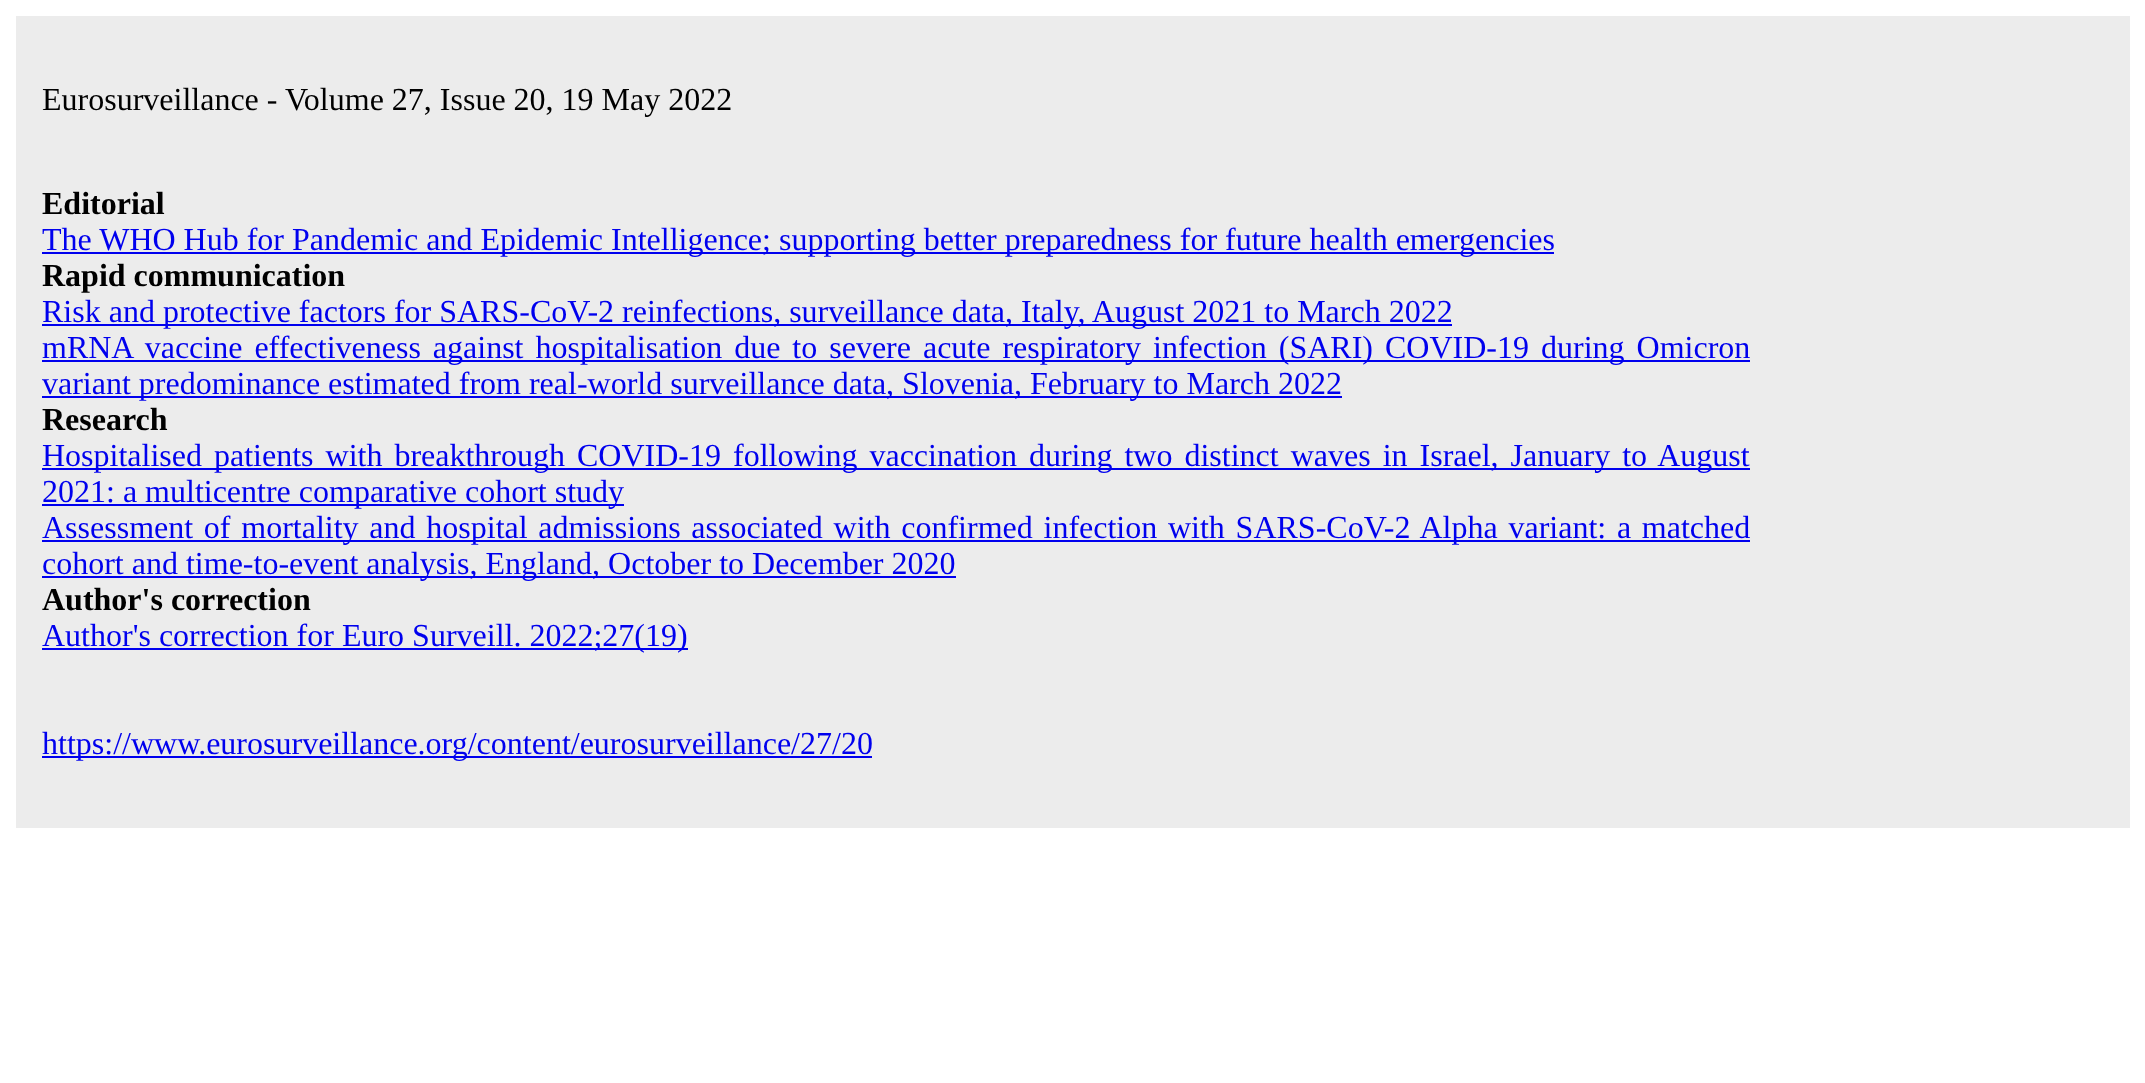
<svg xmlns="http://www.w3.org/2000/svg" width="2145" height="1083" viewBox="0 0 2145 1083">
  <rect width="100%" height="100%" fill="#ffffff"/>
  <rect x="16" y="16" width="2114" height="812" fill="#ececec"/>
  <text x="42" y="110" font-family="Liberation Serif" font-size="32" fill="#000000">Eurosurveillance - Volume 27, Issue 20, 19 May 2022</text>
  <text x="42" y="214" font-family="Liberation Serif" font-size="32" font-weight="bold" fill="#000000">Editorial</text>
  <rect x="42" y="252" width="1512" height="2" fill="#0000ee"/>
  <text x="42" y="250" font-family="Liberation Serif" font-size="32" fill="#0000ee">The WHO Hub for Pandemic and Epidemic Intelligence; supporting better preparedness for future health emergencies</text>
  <text x="42" y="286" font-family="Liberation Serif" font-size="32" font-weight="bold" fill="#000000">Rapid communication</text>
  <rect x="42" y="324" width="1410" height="2" fill="#0000ee"/>
  <text x="42" y="322" font-family="Liberation Serif" font-size="32" fill="#0000ee">Risk and protective factors for SARS-CoV-2 reinfections, surveillance data, Italy, August 2021 to March 2022</text>
  <rect x="42" y="360" width="1708" height="2" fill="#0000ee"/>
  <text x="42" y="358" word-spacing="4" font-family="Liberation Serif" font-size="32" fill="#0000ee">mRNA vaccine effectiveness against hospitalisation due to severe acute respiratory infection (SARI) COVID-19 during Omicron</text>
  <rect x="42" y="396" width="1300" height="2" fill="#0000ee"/>
  <text x="42" y="394" font-family="Liberation Serif" font-size="32" fill="#0000ee">variant predominance estimated from real-world surveillance data, Slovenia, February to March 2022</text>
  <text x="42" y="430" font-family="Liberation Serif" font-size="32" font-weight="bold" fill="#000000">Research</text>
  <rect x="42" y="468" width="1708" height="2" fill="#0000ee"/>
  <text x="42" y="466" word-spacing="4" font-family="Liberation Serif" font-size="32" fill="#0000ee">Hospitalised patients with breakthrough COVID-19 following vaccination during two distinct waves in Israel, January to August</text>
  <rect x="42" y="504" width="582" height="2" fill="#0000ee"/>
  <text x="42" y="502" font-family="Liberation Serif" font-size="32" fill="#0000ee">2021: a multicentre comparative cohort study</text>
  <rect x="42" y="540" width="1708" height="2" fill="#0000ee"/>
  <text x="42" y="538" word-spacing="2.75" font-family="Liberation Serif" font-size="32" fill="#0000ee">Assessment of mortality and hospital admissions associated with confirmed infection with SARS-CoV-2 Alpha variant: a matched</text>
  <rect x="42" y="576" width="914" height="2" fill="#0000ee"/>
  <text x="42" y="574" font-family="Liberation Serif" font-size="32" fill="#0000ee">cohort and time-to-event analysis, England, October to December 2020</text>
  <text x="42" y="610" font-family="Liberation Serif" font-size="32" font-weight="bold" fill="#000000">Author's correction</text>
  <rect x="42" y="648" width="646" height="2" fill="#0000ee"/>
  <text x="42" y="646" font-family="Liberation Serif" font-size="32" fill="#0000ee">Author's correction for Euro Surveill. 2022;27(19)</text>
  <rect x="42" y="756" width="830" height="2" fill="#0000ee"/>
  <text x="42" y="754" font-family="Liberation Serif" font-size="32" fill="#0000ee">https://www.eurosurveillance.org/content/eurosurveillance/27/20</text>
</svg>
